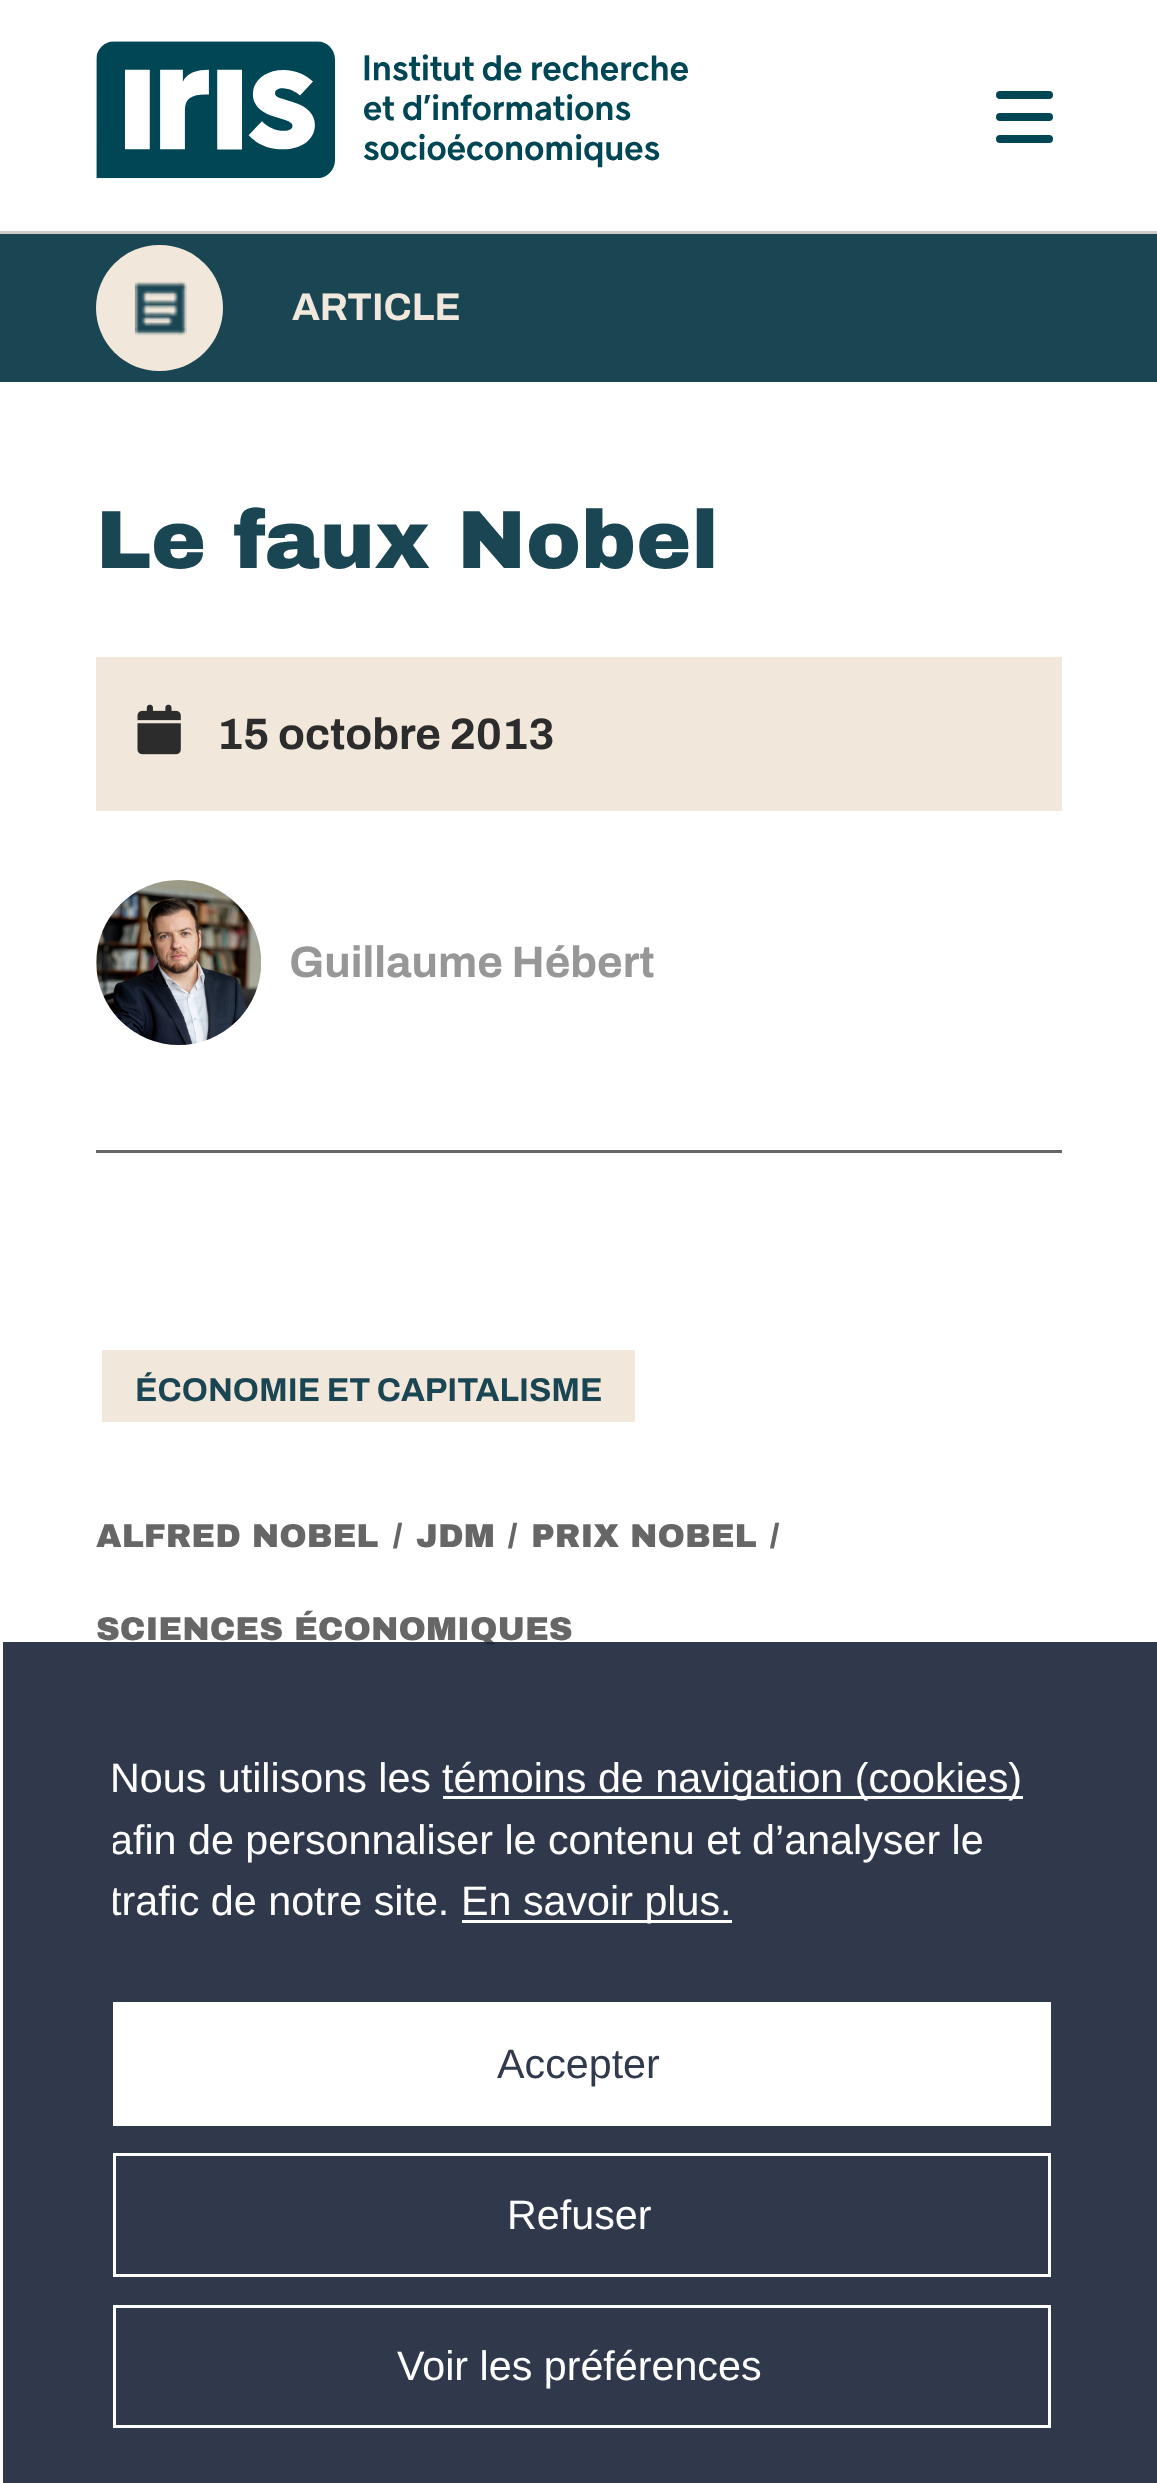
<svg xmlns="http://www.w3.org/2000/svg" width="1157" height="2483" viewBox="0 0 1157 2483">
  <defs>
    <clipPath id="clip1"><rect x="113" y="1724" width="938" height="223"/></clipPath>
  </defs>
  <rect width="100%" height="100%" fill="#ffffff"/>
  <rect x="996" y="113" width="57" height="8" rx="4" fill="#004654"/>
  <rect x="996" y="91" width="57" height="8" rx="4" fill="#004654"/>
  <rect x="996" y="135" width="57" height="8" rx="4" fill="#004654"/>
  <rect x="0" y="231" width="1157" height="3" fill="#cacaca"/>
  <image x="96" y="41" width="592" height="138" href="img1.png"/>
  <rect x="0" y="234" width="1157" height="148" fill="#1a4553"/>
  <rect x="96" y="245" width="127" height="126" rx="63" fill="#f1e7da"/>
  <image x="134" y="281" width="53" height="55" href="img2.png"/>
  <text x="292" y="320" font-family="Archivo" font-size="38.5" font-weight="bold" fill="#f1e8dd">ARTICLE</text>
  <text x="96" y="568" font-family="Archivo Black" font-size="82.5" font-weight="900" fill="#1a4553">Le faux Nobel</text>
  <rect x="96" y="657" width="966" height="154" fill="#f1e7da"/>
  <image x="137" y="704" width="44" height="51" href="img3.png"/>
  <text x="217" y="749" font-family="Archivo" font-size="44" font-weight="bold" fill="#2c2c2c">15 octobre 2013</text>
  <image x="96" y="880" width="166" height="165" href="img4.png"/>
  <text x="289" y="977" font-family="Archivo" font-size="44" font-weight="bold" fill="#979797">Guillaume Hébert</text>
  <rect x="96" y="1150" width="966" height="3" fill="#666666"/>
  <rect x="102" y="1350" width="533" height="72" fill="#f1e7da"/>
  <text x="135" y="1401" font-family="Archivo" font-size="33" font-weight="bold" fill="#1a4553">ÉCONOMIE ET CAPITALISME</text>
  <text x="96" y="1547" font-family="Archivo Black" font-size="33" font-weight="900" fill="#666666">ALFRED NOBEL</text>
  <text x="393" y="1547" font-family="Archivo Black" font-size="33" font-weight="900" fill="#666666">/</text>
  <text x="416" y="1547" font-family="Archivo Black" font-size="33" font-weight="900" fill="#666666">JDM</text>
  <text x="508" y="1547" font-family="Archivo Black" font-size="33" font-weight="900" fill="#666666">/</text>
  <text x="531" y="1547" font-family="Archivo Black" font-size="33" font-weight="900" fill="#666666">PRIX NOBEL</text>
  <text x="770" y="1547" font-family="Archivo Black" font-size="33" font-weight="900" fill="#666666">/</text>
  <text x="96" y="1640" font-family="Archivo Black" font-size="33" font-weight="900" fill="#666666">SCIENCES ÉCONOMIQUES</text>
  <rect x="3" y="1642" width="1154" height="841" fill="#1a2438" fill-opacity="0.9"/>
  <text x="110" y="1792" font-family="Liberation Sans" font-size="41.25" fill="#ffffff">Nous utilisons les</text>
  <rect x="443" y="1796" width="580" height="3" fill="#ffffff"/>
  <text x="442" y="1792" font-family="Liberation Sans" font-size="41.25" fill="#ffffff">témoins de navigation (cookies)</text>
  <g clip-path="url(#clip1)">
    <text x="110" y="1854" font-family="Liberation Sans" font-size="41.25" fill="#ffffff">afin de personnaliser le contenu et d’analyser le</text>
    <text x="110" y="1915" font-family="Liberation Sans" font-size="41.25" fill="#ffffff">trafic de notre site.</text>
  </g>
  <rect x="462" y="1920" width="270" height="3" fill="#ffffff"/>
  <text x="461" y="1915" font-family="Liberation Sans" font-size="41.25" fill="#ffffff">En savoir plus.</text>
  <rect x="113" y="2002" width="938" height="124" fill="#ffffff"/>
  <text x="497" y="2078" font-family="Liberation Sans" font-size="41.25" fill="#313a4c">Accepter</text>
  <rect x="114.5" y="2154.5" width="935" height="121" fill="none" stroke="#ffffff" stroke-width="3"/>
  <text x="507" y="2229" font-family="Liberation Sans" font-size="41.25" fill="#ffffff">Refuser</text>
  <rect x="114.5" y="2306.5" width="935" height="120" fill="none" stroke="#ffffff" stroke-width="3"/>
  <text x="397" y="2380" font-family="Liberation Sans" font-size="41.25" fill="#ffffff">Voir les préférences</text>
</svg>
